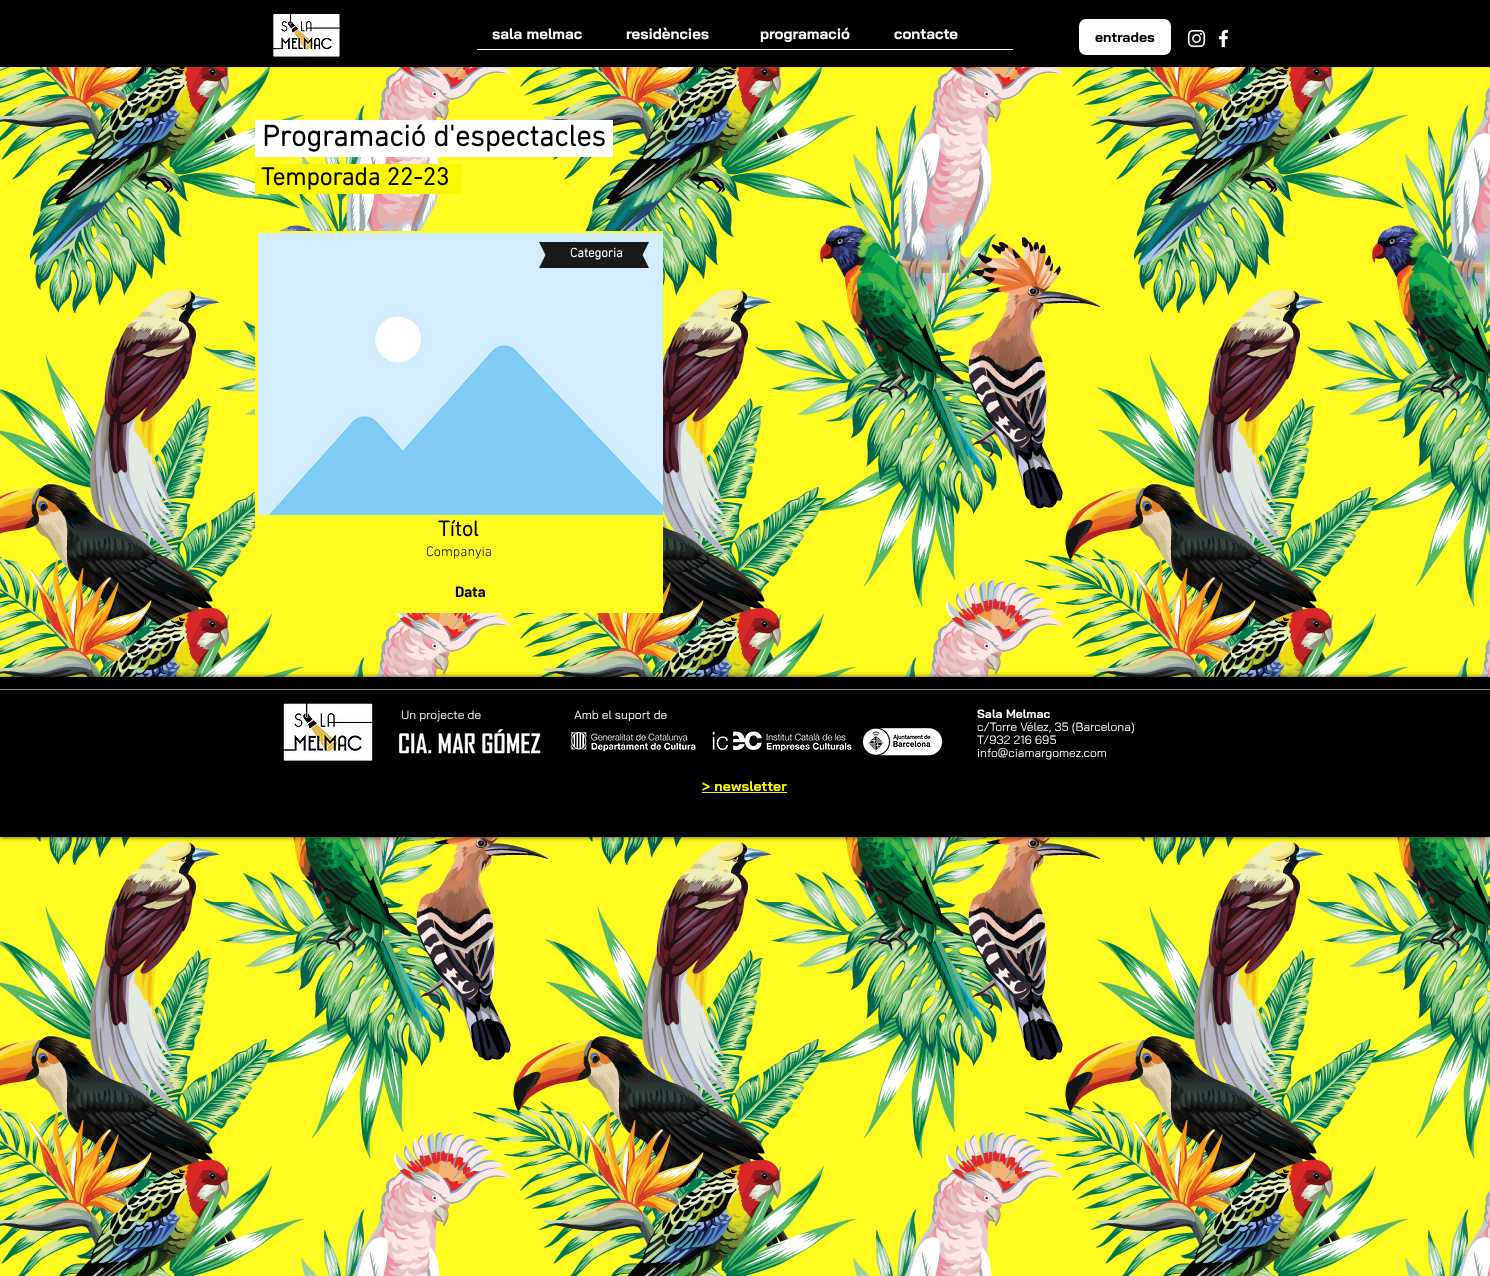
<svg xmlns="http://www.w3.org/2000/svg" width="1490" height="1276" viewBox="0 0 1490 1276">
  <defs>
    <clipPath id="clip1"><rect x="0" y="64" width="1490" height="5"/></clipPath>
    <filter id="blur1" x="-50%" y="-200%" width="200%" height="500%"><feGaussianBlur stdDeviation="2.5"/></filter>
    <clipPath id="clip2"><rect x="539" y="242" width="56" height="14"/></clipPath>
    <clipPath id="clip3"><rect x="594" y="242" width="55" height="14"/></clipPath>
    <clipPath id="clip4"><rect x="539" y="255" width="56" height="13"/></clipPath>
    <clipPath id="clip5"><rect x="594" y="255" width="55" height="13"/></clipPath>
  </defs>
  <rect width="100%" height="100%" fill="#fffa1f"/>
  <rect x="0" y="0" width="1490" height="67" fill="#000000"/>
  <image x="0" y="67" width="1490" height="1209" href="img9.png"/>
  <g clip-path="url(#clip1)">
    <rect x="0" y="0" width="1490" height="64" fill="#000000" fill-opacity="0.7" filter="url(#blur1)"/>
  </g>
  <image x="272" y="12" width="69" height="46" href="img1.png"/>
  <text x="492" y="39" font-family="Bai Jamjuree" font-size="15" font-weight="bold" fill="#ffffff">sala melmac</text>
  <text x="626" y="39" font-family="Bai Jamjuree" font-size="15" font-weight="bold" fill="#ffffff">residències</text>
  <text x="760" y="39" font-family="Bai Jamjuree" font-size="15" font-weight="bold" fill="#ffffff">programació</text>
  <text x="894" y="39" font-family="Bai Jamjuree" font-size="15" font-weight="bold" fill="#ffffff">contacte</text>
  <rect x="477" y="49" width="536" height="1" fill="#ffffff"/>
  <rect x="1079" y="19" width="92" height="36" rx="7" fill="#ffffff"/>
  <text x="1095" y="42" font-family="Bai Jamjuree" font-size="14" font-weight="bold" fill="#000000">entrades</text>
  <image x="1187" y="29" width="19" height="19" href="img2.png"/>
  <image x="1218" y="29" width="11" height="19" href="img3.png"/>
  <rect x="255" y="120" width="358" height="37" fill="#ffffff"/>
  <text x="262" y="146" font-family="'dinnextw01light'" font-size="30" font-weight="bold" fill="#000000">Programació d'espectacles</text>
  <rect x="255" y="164" width="207" height="30" fill="#f8f600"/>
  <text x="261" y="185" font-family="'dinnextw01light'" font-size="25" font-weight="bold" fill="#000000">Temporada 22-23</text>
  <rect x="255" y="231" width="408" height="382" fill="#fffa1f"/>
  <image x="258" y="233" width="405" height="282" href="img4.png"/>
  <g clip-path="url(#clip2)">
    <path d="M539 242H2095L1095 1242H1039Z" fill="#1a1a1a"/>
  </g>
  <g clip-path="url(#clip3)">
    <path d="M-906 242H649L149 1242H94Z" fill="#1a1a1a"/>
  </g>
  <g clip-path="url(#clip4)">
    <path d="M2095 268H539L1039-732H1095Z" fill="#1a1a1a"/>
  </g>
  <g clip-path="url(#clip5)">
    <path d="M649 268H-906L94-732H149Z" fill="#1a1a1a"/>
  </g>
  <text x="570" y="257" font-family="'dinnextw01light'" font-size="13" font-weight="bold" fill="#ffffff">Categoria</text>
  <text x="438" y="536" font-family="'dinnextw01light'" font-size="22" font-weight="bold" fill="#000000">Títol</text>
  <text x="426" y="556" font-family="'dinnextw01light'" font-size="14" font-weight="300" fill="#000000">Companyia</text>
  <text x="455" y="597" font-family="Barlow" font-size="15" font-weight="bold" fill="#000000">Data</text>
  <rect x="0" y="677" width="1490" height="160" fill="#000000" fill-opacity="0.7" filter="url(#blur1)"/>
  <rect x="0" y="677" width="1490" height="160" fill="#000000"/>
  <rect x="0" y="689" width="1490" height="1" fill="#8a8a8a"/>
  <image x="281" y="701" width="94" height="62" href="img5.png"/>
  <text x="401" y="719" font-family="Bai Jamjuree" font-size="12" fill="#ffffff">Un projecte de</text>
  <text x="574" y="719" font-family="Bai Jamjuree" font-size="12" fill="#ffffff">Amb el suport de</text>
  <text x="977" y="718" font-family="Bai Jamjuree" font-size="12" font-weight="bold" fill="#ffffff">Sala Melmac</text>
  <text x="977" y="731" font-family="Bai Jamjuree" font-size="12" fill="#ffffff">c/Torre Vélez, 35 (Barcelona)</text>
  <text x="977" y="744" font-family="Bai Jamjuree" font-size="12" fill="#ffffff">T/932 216 695</text>
  <text x="977" y="757" font-family="Bai Jamjuree" font-size="12" fill="#ffffff">info@ciamargomez.com</text>
  <image x="398" y="729" width="143" height="25" href="img6.png"/>
  <image x="571" y="721" width="281" height="31" href="img7.png"/>
  <image x="862" y="727" width="81" height="29" href="img8.png"/>
  <text x="702" y="791" font-family="Bai Jamjuree" font-size="14" font-weight="bold" letter-spacing="0.1" fill="#f8f600">&gt; newsletter</text>
  <rect x="702" y="792" width="85" height="1" fill="#f8f600"/>
</svg>
